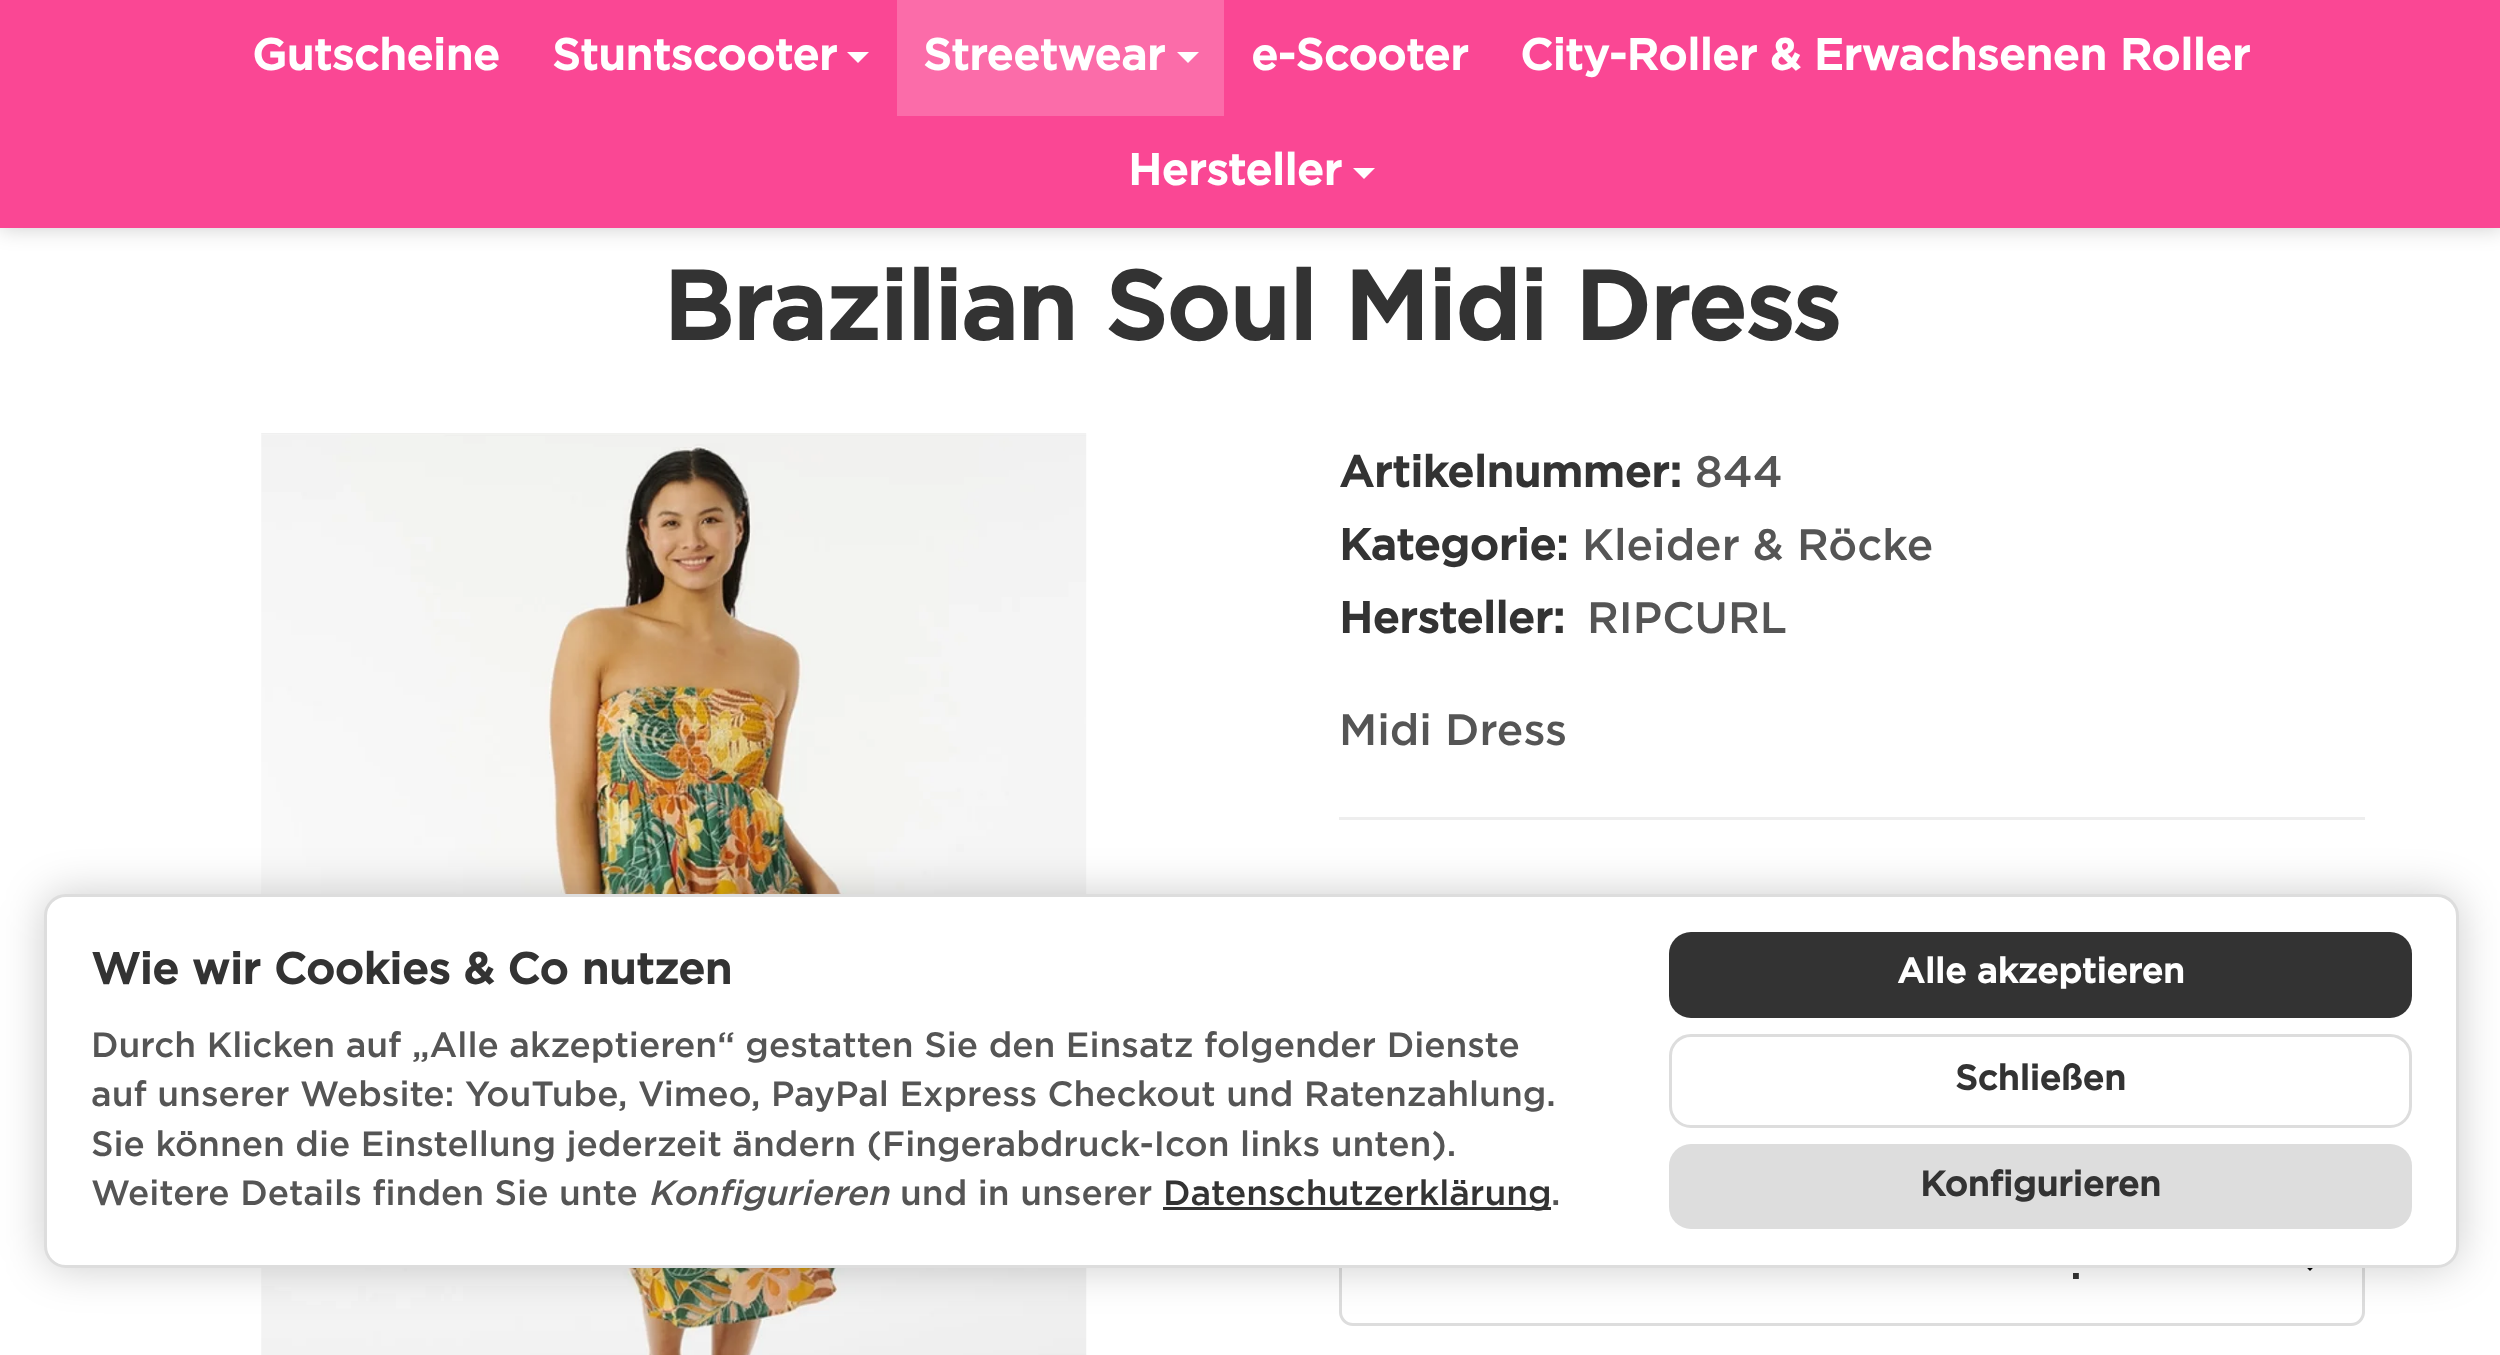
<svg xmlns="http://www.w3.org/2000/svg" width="2500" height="1355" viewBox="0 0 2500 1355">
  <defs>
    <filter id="blur1" x="-50%" y="-200%" width="200%" height="500%"><feGaussianBlur stdDeviation="11"/></filter>
    <filter id="blur2" x="-50%" y="-200%" width="200%" height="500%"><feGaussianBlur stdDeviation="22"/></filter>
  </defs>
  <rect width="100%" height="100%" fill="#ffffff"/>
  <rect x="0" y="0" width="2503" height="228" fill="#000000" fill-opacity="0.2" filter="url(#blur1)"/>
  <rect x="0" y="0" width="2500" height="228" fill="#fa4794"/>
  <text x="252" y="70" font-family="Gotham" font-size="44" font-weight="bold" fill="#ffffff">Gutscheine</text>
  <text x="552" y="70" font-family="Gotham" font-size="44" font-weight="bold" fill="#ffffff">Stuntscooter</text>
  <path d="M847 52H869L858 63Z" fill="#ffffff"/>
  <rect x="897" y="0" width="327" height="116" fill="#fb6ca9"/>
  <text x="923" y="70" font-family="Gotham" font-size="44" font-weight="bold" fill="#ffffff">Streetwear</text>
  <path d="M1177 52H1199L1188 63Z" fill="#ffffff"/>
  <text x="1251" y="70" font-family="Gotham" font-size="44" font-weight="bold" fill="#ffffff">e-Scooter</text>
  <text x="1520" y="70" font-family="Gotham" font-size="44" font-weight="bold" fill="#ffffff">City-Roller &amp; Erwachsenen Roller</text>
  <text x="1128" y="185" font-family="Gotham" font-size="44" font-weight="bold" fill="#ffffff">Hersteller</text>
  <path d="M1353 168H1375L1364 179Z" fill="#ffffff"/>
  <text x="663" y="340" font-family="Gotham" font-size="96.75" font-weight="bold" letter-spacing="-0.55" fill="#333333">Brazilian Soul Midi Dress</text>
  <image x="261" y="433" width="826" height="922" href="img1.png"/>
  <text x="1339" y="487" font-family="Gotham" font-size="44" font-weight="bold" fill="#333333">Artikelnummer:</text>
  <text x="1695" y="487" font-family="Gotham" font-size="44" font-weight="500" fill="#555555">844</text>
  <text x="1339" y="560" font-family="Gotham" font-size="44" font-weight="bold" fill="#333333">Kategorie:</text>
  <text x="1582" y="560" font-family="Gotham" font-size="44" font-weight="500" fill="#555555">Kleider &amp; Röcke</text>
  <text x="1339" y="633" font-family="Gotham" font-size="44" font-weight="bold" fill="#333333">Hersteller:</text>
  <text x="1587" y="633" font-family="Gotham" font-size="44" font-weight="500" fill="#555555">RIPCURL</text>
  <text x="1339" y="745" font-family="Gotham" font-size="44" font-weight="500" fill="#555555">Midi Dress</text>
  <rect x="1339" y="817" width="1026" height="3" fill="#eeeeee"/>
  <path d="M2310 1271L2321 1259.5H2299Z" fill="#010202"/>
  <rect x="1340.5" y="1208.5" width="1023" height="116" rx="12.5" fill="none" stroke="#dddddd" stroke-width="3"/>
  <text x="2070" y="1279" font-family="Gotham" font-size="44" font-weight="500" fill="#333333">.</text>
  <rect x="44" y="894" width="2415" height="374" rx="22" fill="#000000" fill-opacity="0.2" filter="url(#blur2)"/>
  <rect x="45.5" y="895.5" width="2412" height="371" rx="20.5" fill="#ffffff" stroke="#dddddd" stroke-width="3"/>
  <text x="91" y="984" font-family="Gotham" font-size="44" font-weight="bold" fill="#333333">Wie wir Cookies &amp; Co nutzen</text>
  <text x="91" y="1057" font-family="Gotham" font-size="35.2" font-weight="500" fill="#555555">Durch Klicken auf „Alle akzeptieren“ gestatten Sie den Einsatz folgender Dienste</text>
  <text x="91" y="1106" font-family="Gotham" font-size="35.2" font-weight="500" fill="#555555">auf unserer Website: YouTube, Vimeo, PayPal Express Checkout und Ratenzahlung.</text>
  <text x="91" y="1156" font-family="Gotham" font-size="35.2" font-weight="500" fill="#555555">Sie können die Einstellung jederzeit ändern (Fingerabdruck-Icon links unten).</text>
  <text x="91" y="1205" font-family="Gotham" font-size="35.2" font-weight="500" fill="#555555">Weitere Details finden Sie unte</text>
  <text x="648" y="1205" font-family="Gotham" font-size="35.2" font-weight="500" font-style="italic" fill="#555555">Konfigurieren</text>
  <text x="900" y="1205" font-family="Gotham" font-size="35.2" font-weight="500" fill="#555555">und in unserer</text>
  <rect x="1163" y="1207" width="388" height="3" fill="#333333"/>
  <text x="1163" y="1205" font-family="Gotham" font-size="35.2" font-weight="500" fill="#333333">Datenschutzerklärung</text>
  <text x="1551" y="1205" font-family="Gotham" font-size="35.2" font-weight="500" fill="#555555">.</text>
  <rect x="1669" y="932" width="743" height="86" rx="22" fill="#333333"/>
  <text x="1897" y="983" font-family="Gotham" font-size="35.2" font-weight="bold" fill="#ffffff">Alle akzeptieren</text>
  <rect x="1670.5" y="1035.5" width="740" height="91" rx="20.5" fill="none" stroke="#dddddd" stroke-width="3"/>
  <text x="1955" y="1090" font-family="Gotham" font-size="35.2" font-weight="bold" fill="#333333">Schließen</text>
  <rect x="1669" y="1144" width="743" height="85" rx="22" fill="#dddddd"/>
  <text x="1920" y="1196" font-family="Gotham" font-size="35.2" font-weight="bold" fill="#333333">Konfigurieren</text>
</svg>
